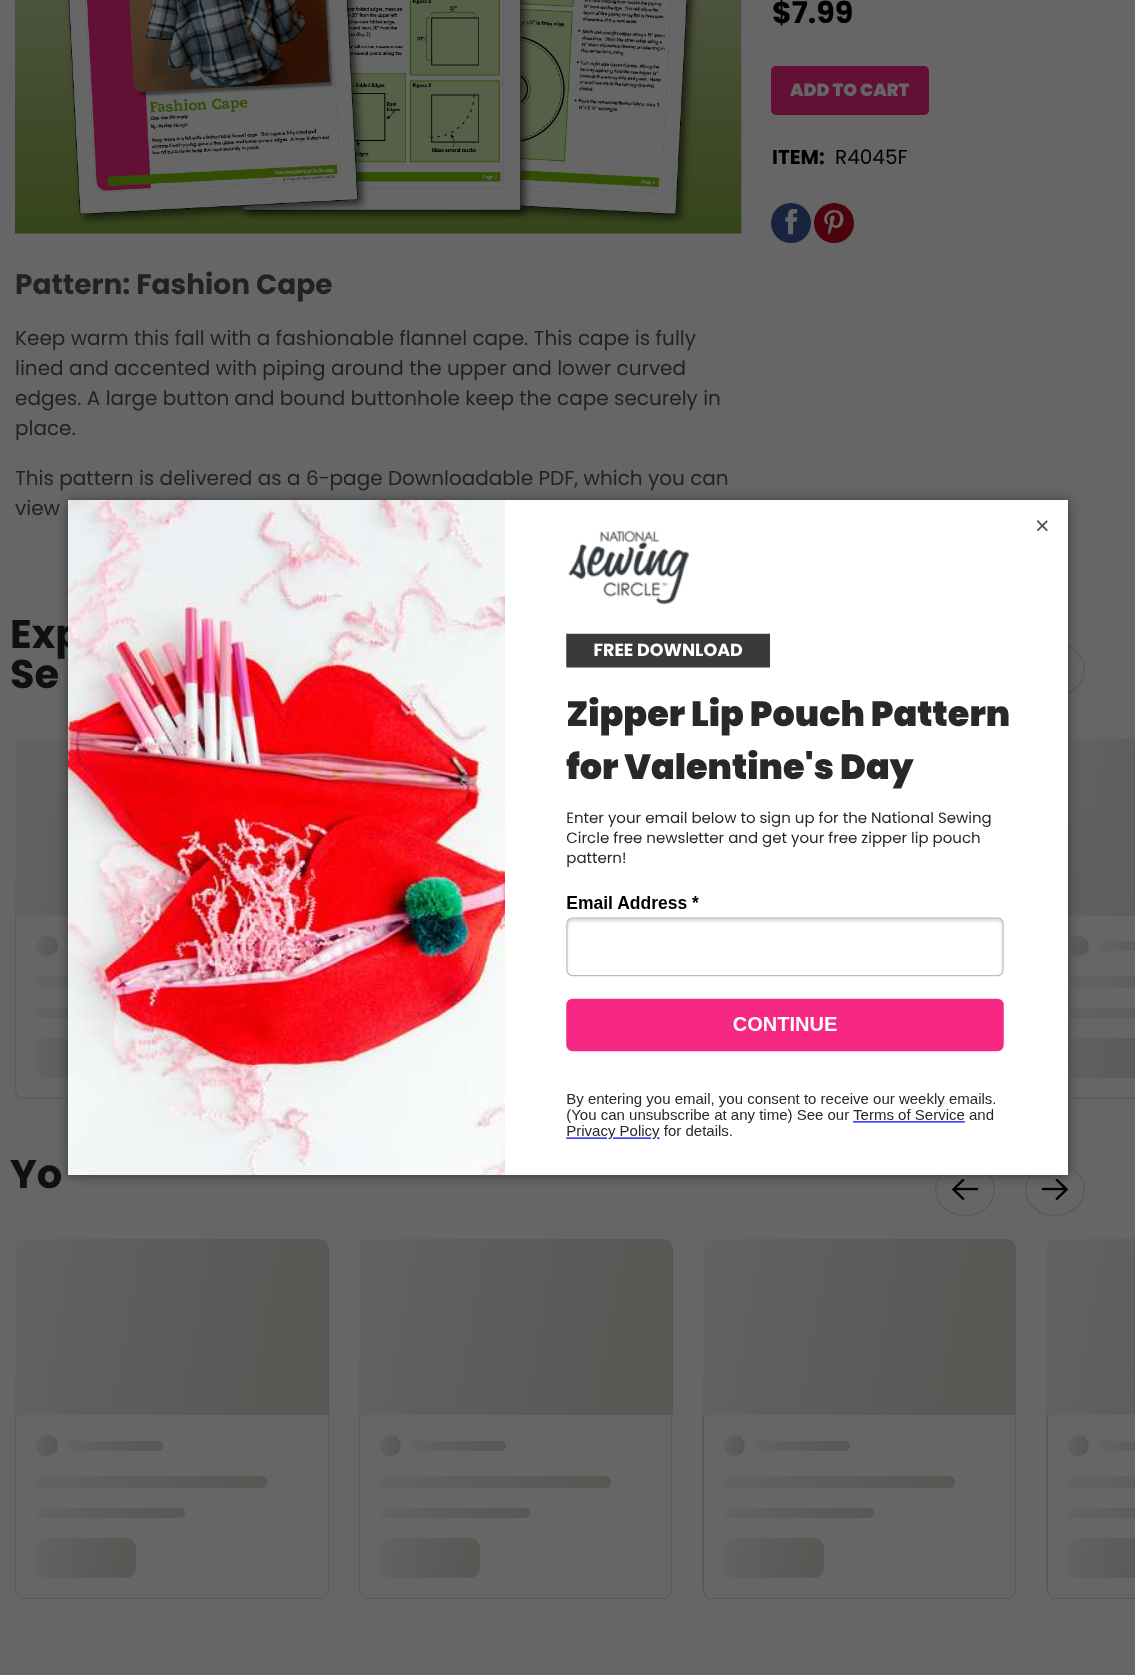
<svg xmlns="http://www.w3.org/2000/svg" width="1135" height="1675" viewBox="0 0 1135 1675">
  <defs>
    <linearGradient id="g1" gradientUnits="userSpaceOnUse" x1="14" y1="744" x2="957" y2="911"><stop offset="0" stop-color="#626262"/><stop offset="0.33" stop-color="#585754"/><stop offset="0.67" stop-color="#626262"/><stop offset="1" stop-color="#585754"/></linearGradient>
    <linearGradient id="g2" gradientUnits="userSpaceOnUse" x1="36" y1="940" x2="101" y2="952"><stop offset="0" stop-color="#626262"/><stop offset="0.33" stop-color="#585754"/><stop offset="0.67" stop-color="#626262"/><stop offset="1" stop-color="#585754"/></linearGradient>
    <linearGradient id="g3" gradientUnits="userSpaceOnUse" x1="46" y1="922" x2="721" y2="1041"><stop offset="0" stop-color="#626262"/><stop offset="0.33" stop-color="#585754"/><stop offset="0.67" stop-color="#626262"/><stop offset="1" stop-color="#585754"/></linearGradient>
    <linearGradient id="g4" gradientUnits="userSpaceOnUse" x1="42" y1="974" x2="477" y2="1051"><stop offset="0" stop-color="#626262"/><stop offset="0.33" stop-color="#585754"/><stop offset="0.67" stop-color="#626262"/><stop offset="1" stop-color="#585754"/></linearGradient>
    <linearGradient id="g5" gradientUnits="userSpaceOnUse" x1="37" y1="1031" x2="335" y2="1084"><stop offset="0" stop-color="#626262"/><stop offset="0.33" stop-color="#585754"/><stop offset="0.67" stop-color="#626262"/><stop offset="1" stop-color="#585754"/></linearGradient>
    <linearGradient id="g6" gradientUnits="userSpaceOnUse" x1="1045" y1="744" x2="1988" y2="911"><stop offset="0" stop-color="#626262"/><stop offset="0.33" stop-color="#585754"/><stop offset="0.67" stop-color="#626262"/><stop offset="1" stop-color="#585754"/></linearGradient>
    <linearGradient id="g7" gradientUnits="userSpaceOnUse" x1="1067" y1="940" x2="1132" y2="952"><stop offset="0" stop-color="#626262"/><stop offset="0.33" stop-color="#585754"/><stop offset="0.67" stop-color="#626262"/><stop offset="1" stop-color="#585754"/></linearGradient>
    <linearGradient id="g8" gradientUnits="userSpaceOnUse" x1="1102" y1="922" x2="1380" y2="971"><stop offset="0" stop-color="#626262"/><stop offset="0.33" stop-color="#585754"/><stop offset="0.67" stop-color="#626262"/><stop offset="1" stop-color="#585754"/></linearGradient>
    <linearGradient id="g9" gradientUnits="userSpaceOnUse" x1="1077" y1="922" x2="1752" y2="1041"><stop offset="0" stop-color="#626262"/><stop offset="0.33" stop-color="#585754"/><stop offset="0.67" stop-color="#626262"/><stop offset="1" stop-color="#585754"/></linearGradient>
    <linearGradient id="g10" gradientUnits="userSpaceOnUse" x1="1073" y1="974" x2="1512" y2="1051"><stop offset="0" stop-color="#626262"/><stop offset="0.33" stop-color="#585754"/><stop offset="0.67" stop-color="#626262"/><stop offset="1" stop-color="#585754"/></linearGradient>
    <linearGradient id="g11" gradientUnits="userSpaceOnUse" x1="1069" y1="1031" x2="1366" y2="1084"><stop offset="0" stop-color="#626262"/><stop offset="0.33" stop-color="#585754"/><stop offset="0.67" stop-color="#626262"/><stop offset="1" stop-color="#585754"/></linearGradient>
    <linearGradient id="g12" gradientUnits="userSpaceOnUse" x1="14" y1="1244" x2="957" y2="1410"><stop offset="0" stop-color="#626262"/><stop offset="0.33" stop-color="#585754"/><stop offset="0.67" stop-color="#626262"/><stop offset="1" stop-color="#585754"/></linearGradient>
    <linearGradient id="g13" gradientUnits="userSpaceOnUse" x1="35" y1="1440" x2="101" y2="1451"><stop offset="0" stop-color="#626262"/><stop offset="0.33" stop-color="#585754"/><stop offset="0.67" stop-color="#626262"/><stop offset="1" stop-color="#585754"/></linearGradient>
    <linearGradient id="g14" gradientUnits="userSpaceOnUse" x1="71" y1="1422" x2="349" y2="1471"><stop offset="0" stop-color="#626262"/><stop offset="0.33" stop-color="#585754"/><stop offset="0.67" stop-color="#626262"/><stop offset="1" stop-color="#585754"/></linearGradient>
    <linearGradient id="g15" gradientUnits="userSpaceOnUse" x1="46" y1="1422" x2="721" y2="1541"><stop offset="0" stop-color="#626262"/><stop offset="0.33" stop-color="#585754"/><stop offset="0.67" stop-color="#626262"/><stop offset="1" stop-color="#585754"/></linearGradient>
    <linearGradient id="g16" gradientUnits="userSpaceOnUse" x1="42" y1="1474" x2="477" y2="1551"><stop offset="0" stop-color="#626262"/><stop offset="0.33" stop-color="#585754"/><stop offset="0.67" stop-color="#626262"/><stop offset="1" stop-color="#585754"/></linearGradient>
    <linearGradient id="g17" gradientUnits="userSpaceOnUse" x1="37" y1="1531" x2="335" y2="1584"><stop offset="0" stop-color="#626262"/><stop offset="0.33" stop-color="#585754"/><stop offset="0.67" stop-color="#626262"/><stop offset="1" stop-color="#585754"/></linearGradient>
    <linearGradient id="g18" gradientUnits="userSpaceOnUse" x1="358" y1="1244" x2="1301" y2="1410"><stop offset="0" stop-color="#626262"/><stop offset="0.33" stop-color="#585754"/><stop offset="0.67" stop-color="#626262"/><stop offset="1" stop-color="#585754"/></linearGradient>
    <linearGradient id="g19" gradientUnits="userSpaceOnUse" x1="379" y1="1440" x2="445" y2="1451"><stop offset="0" stop-color="#626262"/><stop offset="0.33" stop-color="#585754"/><stop offset="0.67" stop-color="#626262"/><stop offset="1" stop-color="#585754"/></linearGradient>
    <linearGradient id="g20" gradientUnits="userSpaceOnUse" x1="415" y1="1422" x2="693" y2="1471"><stop offset="0" stop-color="#626262"/><stop offset="0.33" stop-color="#585754"/><stop offset="0.67" stop-color="#626262"/><stop offset="1" stop-color="#585754"/></linearGradient>
    <linearGradient id="g21" gradientUnits="userSpaceOnUse" x1="389" y1="1422" x2="1064" y2="1541"><stop offset="0" stop-color="#626262"/><stop offset="0.33" stop-color="#585754"/><stop offset="0.67" stop-color="#626262"/><stop offset="1" stop-color="#585754"/></linearGradient>
    <linearGradient id="g22" gradientUnits="userSpaceOnUse" x1="386" y1="1474" x2="824" y2="1551"><stop offset="0" stop-color="#626262"/><stop offset="0.33" stop-color="#585754"/><stop offset="0.67" stop-color="#626262"/><stop offset="1" stop-color="#585754"/></linearGradient>
    <linearGradient id="g23" gradientUnits="userSpaceOnUse" x1="381" y1="1531" x2="679" y2="1584"><stop offset="0" stop-color="#626262"/><stop offset="0.33" stop-color="#585754"/><stop offset="0.67" stop-color="#626262"/><stop offset="1" stop-color="#585754"/></linearGradient>
    <linearGradient id="g24" gradientUnits="userSpaceOnUse" x1="702" y1="1244" x2="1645" y2="1410"><stop offset="0" stop-color="#626262"/><stop offset="0.33" stop-color="#585754"/><stop offset="0.67" stop-color="#626262"/><stop offset="1" stop-color="#585754"/></linearGradient>
    <linearGradient id="g25" gradientUnits="userSpaceOnUse" x1="723" y1="1440" x2="788" y2="1451"><stop offset="0" stop-color="#626262"/><stop offset="0.33" stop-color="#585754"/><stop offset="0.67" stop-color="#626262"/><stop offset="1" stop-color="#585754"/></linearGradient>
    <linearGradient id="g26" gradientUnits="userSpaceOnUse" x1="758" y1="1422" x2="1037" y2="1471"><stop offset="0" stop-color="#626262"/><stop offset="0.33" stop-color="#585754"/><stop offset="0.67" stop-color="#626262"/><stop offset="1" stop-color="#585754"/></linearGradient>
    <linearGradient id="g27" gradientUnits="userSpaceOnUse" x1="733" y1="1422" x2="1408" y2="1541"><stop offset="0" stop-color="#626262"/><stop offset="0.33" stop-color="#585754"/><stop offset="0.67" stop-color="#626262"/><stop offset="1" stop-color="#585754"/></linearGradient>
    <linearGradient id="g28" gradientUnits="userSpaceOnUse" x1="730" y1="1474" x2="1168" y2="1551"><stop offset="0" stop-color="#626262"/><stop offset="0.33" stop-color="#585754"/><stop offset="0.67" stop-color="#626262"/><stop offset="1" stop-color="#585754"/></linearGradient>
    <linearGradient id="g29" gradientUnits="userSpaceOnUse" x1="725" y1="1531" x2="1023" y2="1584"><stop offset="0" stop-color="#626262"/><stop offset="0.33" stop-color="#585754"/><stop offset="0.67" stop-color="#626262"/><stop offset="1" stop-color="#585754"/></linearGradient>
    <linearGradient id="g30" gradientUnits="userSpaceOnUse" x1="1045" y1="1244" x2="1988" y2="1410"><stop offset="0" stop-color="#626262"/><stop offset="0.33" stop-color="#585754"/><stop offset="0.67" stop-color="#626262"/><stop offset="1" stop-color="#585754"/></linearGradient>
    <linearGradient id="g31" gradientUnits="userSpaceOnUse" x1="1067" y1="1440" x2="1132" y2="1451"><stop offset="0" stop-color="#626262"/><stop offset="0.33" stop-color="#585754"/><stop offset="0.67" stop-color="#626262"/><stop offset="1" stop-color="#585754"/></linearGradient>
    <linearGradient id="g32" gradientUnits="userSpaceOnUse" x1="1102" y1="1422" x2="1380" y2="1471"><stop offset="0" stop-color="#626262"/><stop offset="0.33" stop-color="#585754"/><stop offset="0.67" stop-color="#626262"/><stop offset="1" stop-color="#585754"/></linearGradient>
    <linearGradient id="g33" gradientUnits="userSpaceOnUse" x1="1077" y1="1422" x2="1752" y2="1541"><stop offset="0" stop-color="#626262"/><stop offset="0.33" stop-color="#585754"/><stop offset="0.67" stop-color="#626262"/><stop offset="1" stop-color="#585754"/></linearGradient>
    <linearGradient id="g34" gradientUnits="userSpaceOnUse" x1="1073" y1="1474" x2="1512" y2="1551"><stop offset="0" stop-color="#626262"/><stop offset="0.33" stop-color="#585754"/><stop offset="0.67" stop-color="#626262"/><stop offset="1" stop-color="#585754"/></linearGradient>
    <linearGradient id="g35" gradientUnits="userSpaceOnUse" x1="1069" y1="1531" x2="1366" y2="1584"><stop offset="0" stop-color="#626262"/><stop offset="0.33" stop-color="#585754"/><stop offset="0.67" stop-color="#626262"/><stop offset="1" stop-color="#585754"/></linearGradient>
    <filter id="blur1" x="-50%" y="-200%" width="200%" height="500%"><feGaussianBlur stdDeviation="7.5"/></filter>
    <filter id="blur2" x="-50%" y="-200%" width="200%" height="500%"><feGaussianBlur stdDeviation="3"/></filter>
  </defs>
  <rect width="100%" height="100%" fill="#666666"/>
  <image x="15" y="0" width="727" height="234" href="img1.png"/>
  <text x="772" y="23" font-family="Poppins" font-size="30" font-weight="bold" fill="#000000">$7.99</text>
  <rect x="771" y="66" width="158" height="49" rx="5" fill="#621035"/>
  <text x="790" y="96" font-family="Poppins" font-size="17.5" font-weight="900" fill="#666666">ADD TO CART</text>
  <text x="772" y="164" font-family="Poppins" font-size="20" font-weight="bold" fill="#000000">ITEM:</text>
  <text x="835" y="164" font-family="Poppins" font-size="20" fill="#000000">R4045F</text>
  <circle cx="791" cy="223" r="20" fill="#18243d"/>
  <image x="785" y="209" width="13" height="26" href="img2.png"/>
  <circle cx="834" cy="223" r="20" fill="#4c030b"/>
  <image x="824" y="210" width="20" height="25" href="img3.png"/>
  <text x="15" y="294" font-family="Poppins" font-size="28" font-weight="bold" fill="#222222">Pattern: Fashion Cape</text>
  <text x="15" y="345" font-family="Poppins" font-size="20" fill="#222222">Keep warm this fall with a fashionable flannel cape. This cape is fully</text>
  <text x="15" y="375" font-family="Poppins" font-size="20" fill="#222222">lined and accented with piping around the upper and lower curved</text>
  <text x="15" y="405" font-family="Poppins" font-size="20" fill="#222222">edges. A large button and bound buttonhole keep the cape securely in</text>
  <text x="15" y="435" font-family="Poppins" font-size="20" fill="#222222">place.</text>
  <text x="15" y="485" font-family="Poppins" font-size="20" fill="#222222">This pattern is delivered as a 6-page Downloadable PDF, which you can</text>
  <text x="15" y="515" font-family="Poppins" font-size="20" fill="#222222">view</text>
  <text x="10" y="648" font-family="Poppins" font-size="40" font-weight="bold" fill="#101010">Exp</text>
  <text x="10" y="688" font-family="Poppins" font-size="40" font-weight="bold" fill="#101010">Se</text>
  <path d="M1055 643C1071 643 1084.5 655 1084.5 669.5C1084.5 684 1071 695.5 1055 695.5C1039 695.5 1025.5 684 1025.5 669.5C1025.5 655 1039 643 1055 643Z" fill="none" stroke="#595959" stroke-width="1.2"/>
  <image x="1068" y="669" width="1" height="1" href="img4.png"/>
  <path d="M25 739H319C324.5 739 329 743.5 329 749V916H15V749C15 743.5 19.5 739 25 739Z" fill="url(#g1)"/>
  <path d="M15 916H329V1089C329 1094 324 1099 319 1099H25C19 1099 15 1094 15 1089ZM16 916H328V1089C328 1094 324 1098 319 1098H25C20 1098 16 1094 16 1089Z" fill="#595959" fill-rule="evenodd"/>
  <rect x="36" y="936" width="22" height="20" rx="10" fill="url(#g2)"/>
  <rect x="36" y="976" width="232" height="12" rx="6" fill="url(#g3)"/>
  <rect x="36" y="1008" width="149" height="10" rx="5" fill="url(#g4)"/>
  <rect x="36" y="1038" width="100" height="40" rx="10" fill="url(#g5)"/>
  <rect x="1068" y="739" width="67" height="177" fill="url(#g6)"/>
  <path d="M1046 916H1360V1089C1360 1094 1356 1099 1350 1099H1056C1051 1099 1046 1094 1046 1089ZM1048 916H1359V1089C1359 1094 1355 1098 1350 1098H1056C1051 1098 1048 1094 1048 1089Z" fill="#595959" fill-rule="evenodd"/>
  <rect x="1068" y="936" width="21" height="20" rx="10" fill="url(#g7)"/>
  <path d="M1104 941H1135V951H1104C1101 951 1099 949 1099 946C1099 943 1101 941 1104 941Z" fill="url(#g8)"/>
  <path d="M1074 976H1135V988H1074C1070.5 988 1068 985.5 1068 982C1068 978.5 1070.5 976 1074 976Z" fill="url(#g9)"/>
  <path d="M1073 1008H1135V1018H1073C1070 1018 1068 1016 1068 1013C1068 1010 1070 1008 1073 1008Z" fill="url(#g10)"/>
  <path d="M1078 1038H1135V1078H1078C1072.5 1078 1068 1073.5 1068 1068V1048C1068 1042.5 1072.5 1038 1078 1038Z" fill="url(#g11)"/>
  <text x="10" y="1188" font-family="Poppins" font-size="40" font-weight="bold" fill="#101010">Yo</text>
  <path d="M965 1163C981 1163 994.5 1175 994.5 1189.5C994.5 1204 981 1215.5 965 1215.5C949 1215.5 935.5 1204 935.5 1189.5C935.5 1175 949 1163 965 1163Z" fill="none" stroke="#595959" stroke-width="1.2"/>
  <image x="951" y="1179" width="28" height="21" href="img5.png"/>
  <path d="M1055 1163C1071 1163 1084.5 1175 1084.5 1189.5C1084.5 1204 1071 1215.5 1055 1215.5C1039 1215.5 1025.5 1204 1025.5 1189.5C1025.5 1175 1039 1163 1055 1163Z" fill="none" stroke="#595959" stroke-width="1.2"/>
  <image x="1041" y="1179" width="28" height="21" href="img6.png"/>
  <path d="M25 1239H319C324.5 1239 329 1243.5 329 1249V1415H15V1249C15 1243.5 19.5 1239 25 1239Z" fill="url(#g12)"/>
  <path d="M15 1415H329V1589C329 1594 324 1599 319 1599H25C19 1599 15 1594 15 1589ZM16 1415H328V1589C328 1594 324 1598 319 1598H25C20 1598 16 1594 16 1589Z" fill="#595959" fill-rule="evenodd"/>
  <rect x="36" y="1435" width="22" height="21" rx="10.5" fill="url(#g13)"/>
  <rect x="68" y="1441" width="95" height="10" rx="5" fill="url(#g14)"/>
  <rect x="36" y="1476" width="232" height="12" rx="6" fill="url(#g15)"/>
  <rect x="36" y="1508" width="149" height="10" rx="5" fill="url(#g16)"/>
  <rect x="36" y="1538" width="100" height="40" rx="10" fill="url(#g17)"/>
  <path d="M369 1239H663C668.5 1239 673 1243.5 673 1249V1415H359V1249C359 1243.5 363.5 1239 369 1239Z" fill="url(#g18)"/>
  <path d="M359 1415H672V1589C672 1594 668 1599 662 1599H369C363 1599 359 1594 359 1589ZM360 1415H671V1589C671 1594 667 1598 662 1598H369C364 1598 360 1594 360 1589Z" fill="#595959" fill-rule="evenodd"/>
  <circle cx="390.5" cy="1445.5" r="10.5" fill="url(#g19)"/>
  <rect x="411" y="1441" width="95" height="10" rx="5" fill="url(#g20)"/>
  <rect x="380" y="1476" width="231" height="12" rx="6" fill="url(#g21)"/>
  <rect x="380" y="1508" width="150" height="10" rx="5" fill="url(#g22)"/>
  <rect x="380" y="1538" width="100" height="40" rx="10" fill="url(#g23)"/>
  <path d="M713 1239H1006C1011.5 1239 1016 1243.5 1016 1249V1415H703V1249C703 1243.5 707.5 1239 713 1239Z" fill="url(#g24)"/>
  <path d="M702 1415H1016V1589C1016 1594 1012 1599 1006 1599H712C707 1599 702 1594 702 1589ZM704 1415H1015V1589C1015 1594 1011 1598 1006 1598H712C708 1598 704 1594 704 1589Z" fill="#595959" fill-rule="evenodd"/>
  <circle cx="734.5" cy="1445.5" r="10.5" fill="url(#g25)"/>
  <rect x="755" y="1441" width="95" height="10" rx="5" fill="url(#g26)"/>
  <rect x="724" y="1476" width="231" height="12" rx="6" fill="url(#g27)"/>
  <rect x="724" y="1508" width="150" height="10" rx="5" fill="url(#g28)"/>
  <rect x="724" y="1538" width="100" height="40" rx="10" fill="url(#g29)"/>
  <path d="M1056 1239H1135V1415H1046V1249C1046 1243.5 1050.5 1239 1056 1239Z" fill="url(#g30)"/>
  <path d="M1046 1415H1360V1589C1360 1594 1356 1599 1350 1599H1056C1051 1599 1046 1594 1046 1589ZM1048 1415H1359V1589C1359 1594 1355 1598 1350 1598H1056C1051 1598 1048 1594 1048 1589Z" fill="#595959" fill-rule="evenodd"/>
  <circle cx="1078.5" cy="1445.5" r="10.5" fill="url(#g31)"/>
  <path d="M1104 1441H1135V1451H1104C1101 1451 1099 1449 1099 1446C1099 1443 1101 1441 1104 1441Z" fill="url(#g32)"/>
  <path d="M1074 1476H1135V1488H1074C1070.5 1488 1068 1485.5 1068 1482C1068 1478.5 1070.5 1476 1074 1476Z" fill="url(#g33)"/>
  <path d="M1073 1508H1135V1518H1073C1070 1518 1068 1516 1068 1513C1068 1510 1070 1508 1073 1508Z" fill="url(#g34)"/>
  <path d="M1078 1538H1135V1578H1078C1072.5 1578 1068 1573.5 1068 1568V1548C1068 1542.5 1072.5 1538 1078 1538Z" fill="url(#g35)"/>
  <rect x="68" y="500" width="1000" height="675" fill="#000000" fill-opacity="0.3" filter="url(#blur1)"/>
  <rect x="68" y="501" width="1000" height="675" fill="#000000" fill-opacity="0.2" filter="url(#blur2)"/>
  <image x="68" y="500" width="1000" height="675" href="img7.png"/>
  <text x="1035" y="534" font-family="Liberation Sans" font-size="25" fill="#525151">×</text>
</svg>
